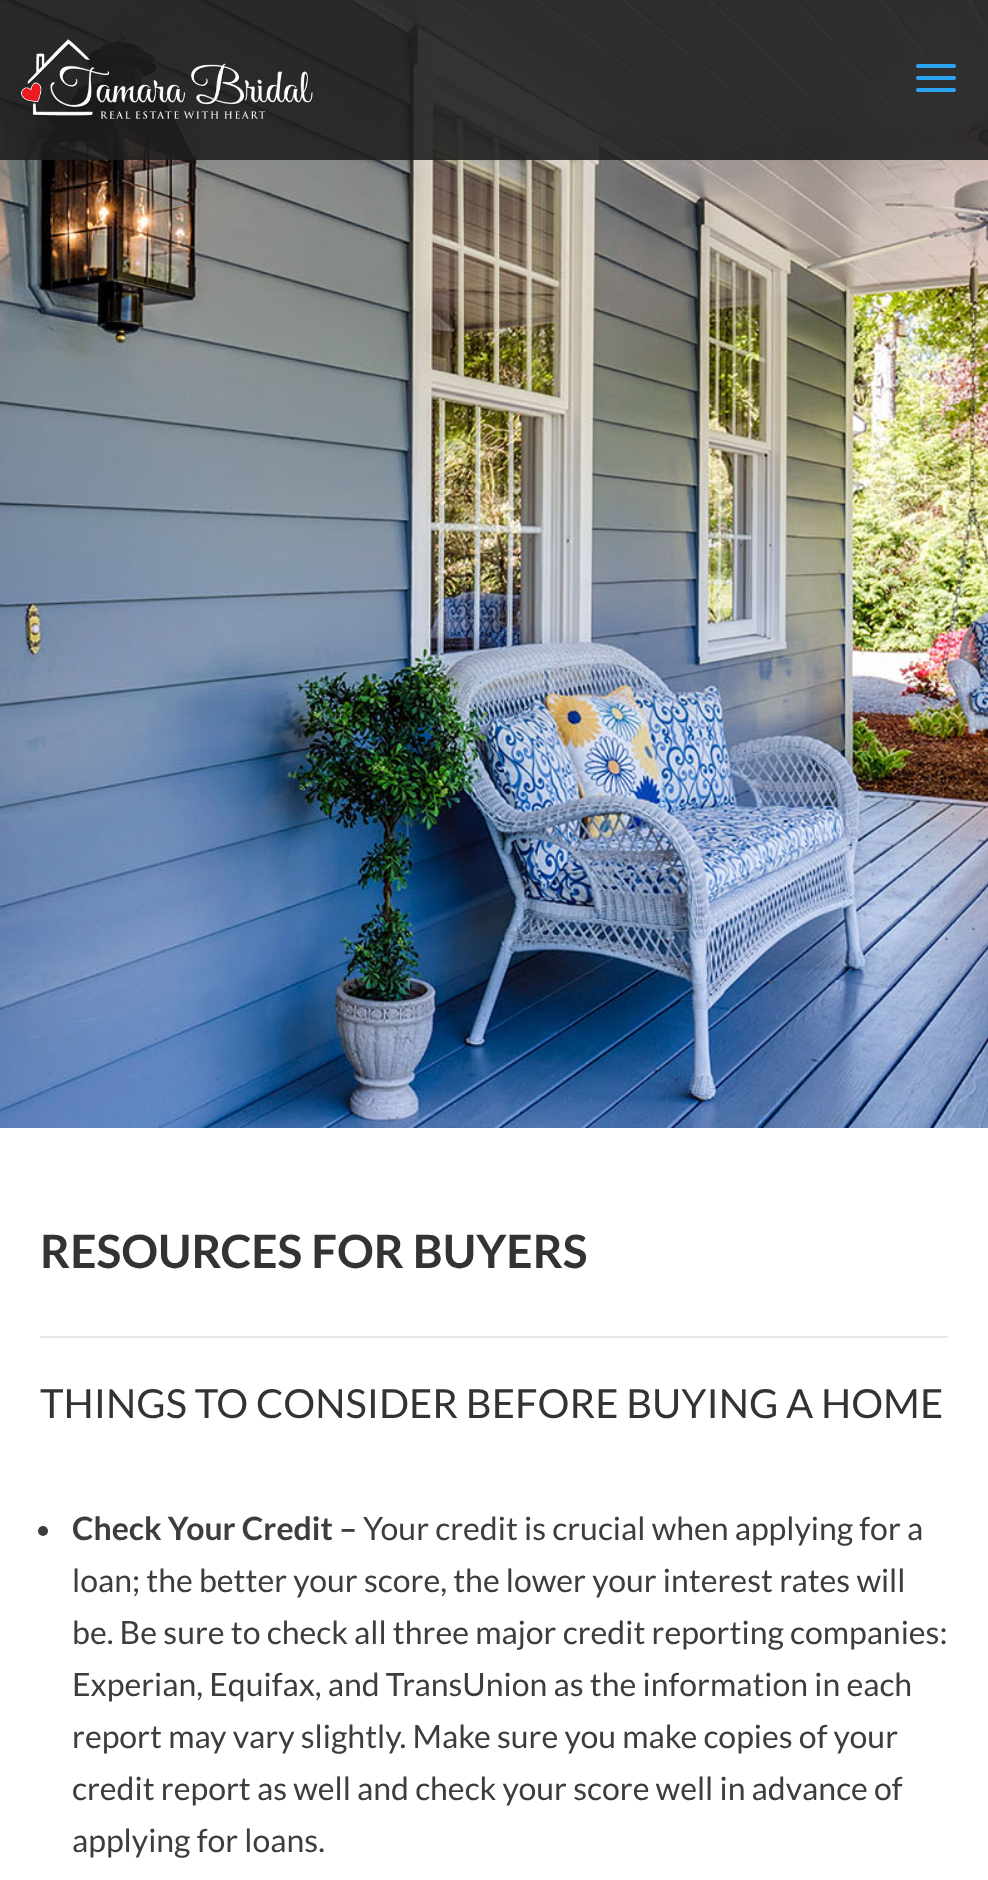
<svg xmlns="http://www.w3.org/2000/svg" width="988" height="1880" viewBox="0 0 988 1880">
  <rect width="100%" height="100%" fill="#ffffff"/>
  <image x="0" y="0" width="988" height="1128" href="img3.png"/>
  <rect x="0" y="0" width="988" height="160" fill="#1e1e1e" fill-opacity="0.89"/>
  <image x="20" y="39" width="293" height="81" href="img1.png"/>
  <image x="916" y="64" width="40" height="28" href="img2.png"/>
  <text x="40" y="1268" font-family="Lato" font-size="46" font-weight="bold" fill="#333333">RESOURCES FOR BUYERS</text>
  <rect x="40" y="1336" width="908" height="2" fill="#e7e7e7"/>
  <text x="40" y="1418" font-family="Lato" font-size="40" fill="#333333">THINGS TO CONSIDER BEFORE BUYING A HOME</text>
  <circle cx="43" cy="1531" r="5" fill="#3d3d3d"/>
  <text x="72" y="1540" font-family="Lato" font-size="32" font-weight="bold" fill="#3d3d3d">Check Your Credit –</text>
  <text x="363" y="1540" font-family="Lato" font-size="32" fill="#3d3d3d">Your credit is crucial when applying for a</text>
  <text x="72" y="1592" font-family="Lato" font-size="32" fill="#3d3d3d">loan; the better your score, the lower your interest rates will</text>
  <text x="72" y="1644" font-family="Lato" font-size="32" fill="#3d3d3d">be. Be sure to check all three major credit reporting companies:</text>
  <text x="72" y="1696" font-family="Lato" font-size="32" fill="#3d3d3d">Experian, Equifax, and TransUnion as the information in each</text>
  <text x="72" y="1748" font-family="Lato" font-size="32" fill="#3d3d3d">report may vary slightly. Make sure you make copies of your</text>
  <text x="72" y="1800" font-family="Lato" font-size="32" fill="#3d3d3d">credit report as well and check your score well in advance of</text>
  <text x="72" y="1852" font-family="Lato" font-size="32" fill="#3d3d3d">applying for loans.</text>
</svg>
